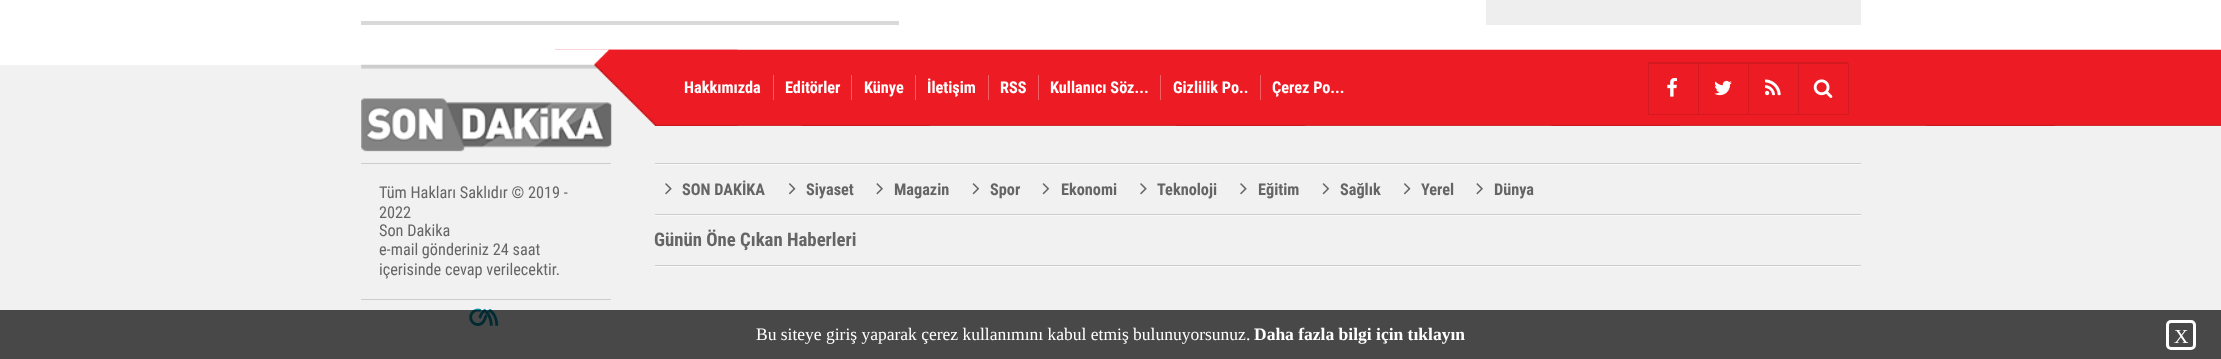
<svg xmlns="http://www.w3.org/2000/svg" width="2221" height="359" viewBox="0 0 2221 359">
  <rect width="100%" height="100%" fill="#ffffff"/>
  <rect x="361" y="21" width="538" height="4" fill="#d9d9d9"/>
  <rect x="1486" y="0" width="375" height="25" fill="#eeeeee"/>
  <rect x="0" y="65" width="2221" height="294" fill="#f1f1f1"/>
  <image x="555" y="49" width="1666" height="77" href="img1.png"/>
  <image x="361" y="49" width="377" height="77" href="img2.png"/>
  <rect x="773" y="75" width="1" height="25" fill="#f26066"/>
  <text x="684" y="93" font-family="Roboto Condensed" font-size="16.25" font-weight="bold" fill="#ffffff">Hakkımızda</text>
  <rect x="851" y="75" width="1" height="25" fill="#f26066"/>
  <text x="785" y="93" font-family="Roboto Condensed" font-size="16.25" font-weight="bold" fill="#ffffff">Editörler</text>
  <rect x="915" y="75" width="1" height="25" fill="#f26066"/>
  <text x="864" y="93" font-family="Roboto Condensed" font-size="16.25" font-weight="bold" fill="#ffffff">Künye</text>
  <rect x="988" y="75" width="1" height="25" fill="#f26066"/>
  <text x="927" y="93" font-family="Roboto Condensed" font-size="16.25" font-weight="bold" fill="#ffffff">İletişim</text>
  <rect x="1038" y="75" width="1" height="25" fill="#f26066"/>
  <text x="1000" y="93" font-family="Roboto Condensed" font-size="16.25" font-weight="bold" fill="#ffffff">RSS</text>
  <rect x="1160" y="75" width="1" height="25" fill="#f26066"/>
  <text x="1050" y="93" font-family="Roboto Condensed" font-size="16.25" font-weight="bold" fill="#ffffff">Kullanıcı Söz...</text>
  <rect x="1260" y="75" width="1" height="25" fill="#f26066"/>
  <text x="1173" y="93" font-family="Roboto Condensed" font-size="16.25" font-weight="bold" fill="#ffffff">Gizlilik Po..</text>
  <text x="1272" y="93" font-family="Roboto Condensed" font-size="16.25" font-weight="bold" fill="#ffffff">Çerez Po...</text>
  <rect x="1848" y="63" width="1" height="52" fill="#d51920"/>
  <path d="M1648 62H1698V64H1649ZM1698 115H1648L1649 114H1698Z" fill="#d51920"/>
  <path d="M1648 115V62L1649 64V114Z" fill="#000000" fill-opacity="0.1"/>
  <image x="1667" y="78" width="10" height="19" href="img3.png"/>
  <path d="M1698 62H1748V64H1699ZM1748 115H1698L1699 114H1748Z" fill="#d51920"/>
  <path d="M1698 115V62L1699 64V114Z" fill="#000000" fill-opacity="0.1"/>
  <image x="1714" y="80" width="18" height="16" href="img4.png"/>
  <path d="M1748 62H1798V64H1749ZM1798 115H1748L1749 114H1798Z" fill="#d51920"/>
  <path d="M1748 115V62L1749 64V114Z" fill="#000000" fill-opacity="0.1"/>
  <image x="1765" y="79" width="16" height="17" href="img5.png"/>
  <path d="M1798 62H1848V64H1799ZM1848 115H1798L1799 114H1848Z" fill="#d51920"/>
  <path d="M1798 115V62L1799 64V114Z" fill="#000000" fill-opacity="0.1"/>
  <image x="1813" y="79" width="20" height="19" href="img6.png"/>
  <image x="361" y="98" width="251" height="54" href="img7.png"/>
  <rect x="361" y="163" width="250" height="1" fill="#cdcdcd"/>
  <rect x="361" y="299" width="250" height="1" fill="#cdcdcd"/>
  <text x="379" y="198" font-family="Roboto Condensed" font-size="16.25" fill="#656565">Tüm Hakları Saklıdır © 2019 -</text>
  <text x="379" y="218" font-family="Roboto Condensed" font-size="16.25" fill="#656565">2022</text>
  <text x="379" y="236" font-family="Roboto Condensed" font-size="16.25" fill="#656565">Son Dakika</text>
  <text x="379" y="255" font-family="Roboto Condensed" font-size="16.25" fill="#656565">e-mail gönderiniz 24 saat</text>
  <text x="379" y="275" font-family="Roboto Condensed" font-size="16.25" fill="#656565">içerisinde cevap verilecektir.</text>
  <rect x="655" y="163" width="1206" height="1" fill="#cdcdcd"/>
  <rect x="655" y="215" width="1206" height="1" fill="#f9f9f9"/>
  <rect x="655" y="164" width="1206" height="1" fill="#f9f9f9"/>
  <rect x="655" y="214" width="1206" height="1" fill="#cdcdcd"/>
  <image x="665" y="183" width="7" height="12" href="img8.png"/>
  <text x="682" y="195" font-family="Roboto Condensed" font-size="16.25" font-weight="bold" fill="#656565">SON DAKİKA</text>
  <image x="789" y="183" width="7" height="12" href="img9.png"/>
  <text x="806" y="195" font-family="Roboto Condensed" font-size="16.25" font-weight="bold" fill="#656565">Siyaset</text>
  <image x="876" y="183" width="7" height="12" href="img10.png"/>
  <text x="894" y="195" font-family="Roboto Condensed" font-size="16.25" font-weight="bold" fill="#656565">Magazin</text>
  <image x="972" y="183" width="8" height="12" href="img11.png"/>
  <text x="990" y="195" font-family="Roboto Condensed" font-size="16.25" font-weight="bold" fill="#656565">Spor</text>
  <image x="1042" y="183" width="8" height="12" href="img11.png"/>
  <text x="1061" y="195" font-family="Roboto Condensed" font-size="16.25" font-weight="bold" fill="#656565">Ekonomi</text>
  <image x="1140" y="183" width="7" height="12" href="img8.png"/>
  <text x="1157" y="195" font-family="Roboto Condensed" font-size="16.25" font-weight="bold" fill="#656565">Teknoloji</text>
  <image x="1240" y="183" width="7" height="12" href="img8.png"/>
  <text x="1258" y="195" font-family="Roboto Condensed" font-size="16.25" font-weight="bold" fill="#656565">Eğitim</text>
  <image x="1322" y="183" width="8" height="12" href="img11.png"/>
  <text x="1340" y="195" font-family="Roboto Condensed" font-size="16.25" font-weight="bold" fill="#656565">Sağlık</text>
  <image x="1404" y="183" width="7" height="12" href="img9.png"/>
  <text x="1421" y="195" font-family="Roboto Condensed" font-size="16.25" font-weight="bold" fill="#656565">Yerel</text>
  <image x="1476" y="183" width="7" height="12" href="img10.png"/>
  <text x="1494" y="195" font-family="Roboto Condensed" font-size="16.25" font-weight="bold" fill="#656565">Dünya</text>
  <rect x="655" y="266" width="1206" height="1" fill="#f9f9f9"/>
  <rect x="655" y="265" width="1206" height="1" fill="#cdcdcd"/>
  <text x="654" y="246" font-family="Roboto Condensed" font-size="18.75" font-weight="bold" fill="#656565">Günün Öne Çıkan Haberleri</text>
  <image x="469" y="308" width="30" height="18" href="img12.png"/>
  <rect x="0" y="310" width="2221" height="49" fill="#000000" fill-opacity="0.7"/>
  <text x="756" y="340" font-family="Liberation Serif" font-size="17.5" fill="#ffffff">Bu siteye giriş yaparak çerez kullanımını kabul etmiş bulunuyorsunuz.</text>
  <text x="1254" y="340" font-family="Liberation Serif" font-size="17.5" font-weight="bold" fill="#ffffff">Daha fazla bilgi için tıklayın</text>
  <rect x="2167.5" y="321.5" width="27" height="27" rx="3.5" fill="none" stroke="#ffffff" stroke-width="3"/>
  <text x="2174" y="343" font-family="Liberation Serif" font-size="20" fill="#ffffff">X</text>
</svg>
